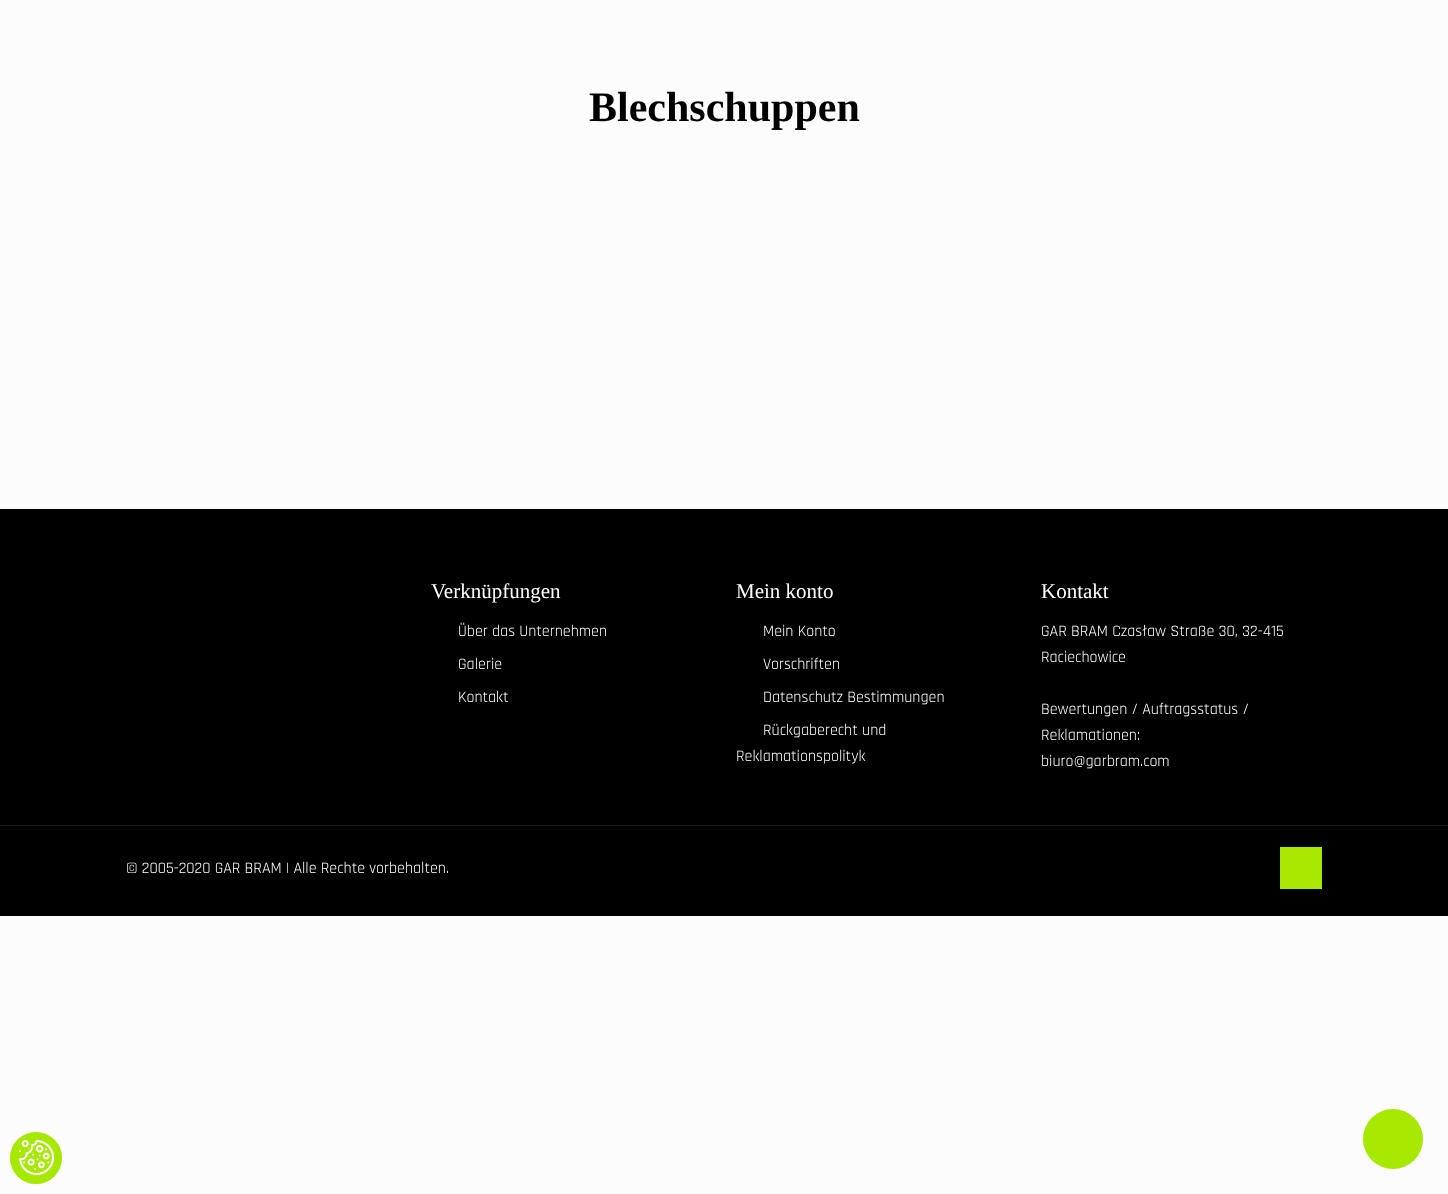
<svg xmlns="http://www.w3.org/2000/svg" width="1448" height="1194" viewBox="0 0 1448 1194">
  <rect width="100%" height="100%" fill="#fcfcfc"/>
  <text x="589" y="121" font-family="Liberation Serif" font-size="42" font-weight="bold" fill="#000000">Blechschuppen</text>
  <rect x="0" y="509" width="1448" height="407" fill="#000000"/>
  <text x="431" y="598" font-family="Liberation Serif" font-size="21" fill="#ffffff">Verknüpfungen</text>
  <text x="458" y="636" font-family="Rajdhani" font-size="16" fill="#ffffff">Über das Unternehmen</text>
  <text x="458" y="669" font-family="Rajdhani" font-size="16" fill="#ffffff">Galerie</text>
  <text x="458" y="702" font-family="Rajdhani" font-size="16" fill="#ffffff">Kontakt</text>
  <text x="736" y="598" font-family="Liberation Serif" font-size="21" fill="#ffffff">Mein konto</text>
  <text x="763" y="636" font-family="Rajdhani" font-size="16" fill="#ffffff">Mein Konto</text>
  <text x="763" y="669" font-family="Rajdhani" font-size="16" fill="#ffffff">Vorschriften</text>
  <text x="763" y="702" font-family="Rajdhani" font-size="16" fill="#ffffff">Datenschutz Bestimmungen</text>
  <text x="763" y="735" font-family="Rajdhani" font-size="16" fill="#ffffff">Rückgaberecht und</text>
  <text x="736" y="761" font-family="Rajdhani" font-size="16" fill="#ffffff">Reklamationspolityk</text>
  <text x="1041" y="598" font-family="Liberation Serif" font-size="21" fill="#ffffff">Kontakt</text>
  <text x="1041" y="636" font-family="Rajdhani" font-size="16" fill="#ffffff">GAR BRAM Czasław Straße 30, 32-415</text>
  <text x="1041" y="662" font-family="Rajdhani" font-size="16" fill="#ffffff">Raciechowice</text>
  <text x="1041" y="714" font-family="Rajdhani" font-size="16" fill="#ffffff">Bewertungen / Auftragsstatus /</text>
  <text x="1041" y="740" font-family="Rajdhani" font-size="16" fill="#ffffff">Reklamationen:</text>
  <text x="1041" y="766" font-family="Rajdhani" font-size="16" fill="#ffffff">biuro@garbram.com</text>
  <rect x="0" y="825" width="1448" height="1" fill="#1a1a1a"/>
  <text x="126" y="873" font-family="Rajdhani" font-size="16" fill="#ffffff">© 2005-2020 GAR BRAM | Alle Rechte vorbehalten.</text>
  <rect x="1280" y="847" width="42" height="42" fill="#a7e800"/>
  <circle cx="36" cy="1158" r="25" fill="#a7e800" stroke="#a7e800" stroke-width="2"/>
  <image x="19" y="1140" width="35" height="35" href="img1.png"/>
  <circle cx="1393" cy="1139" r="30" fill="#a7e800"/>
</svg>
